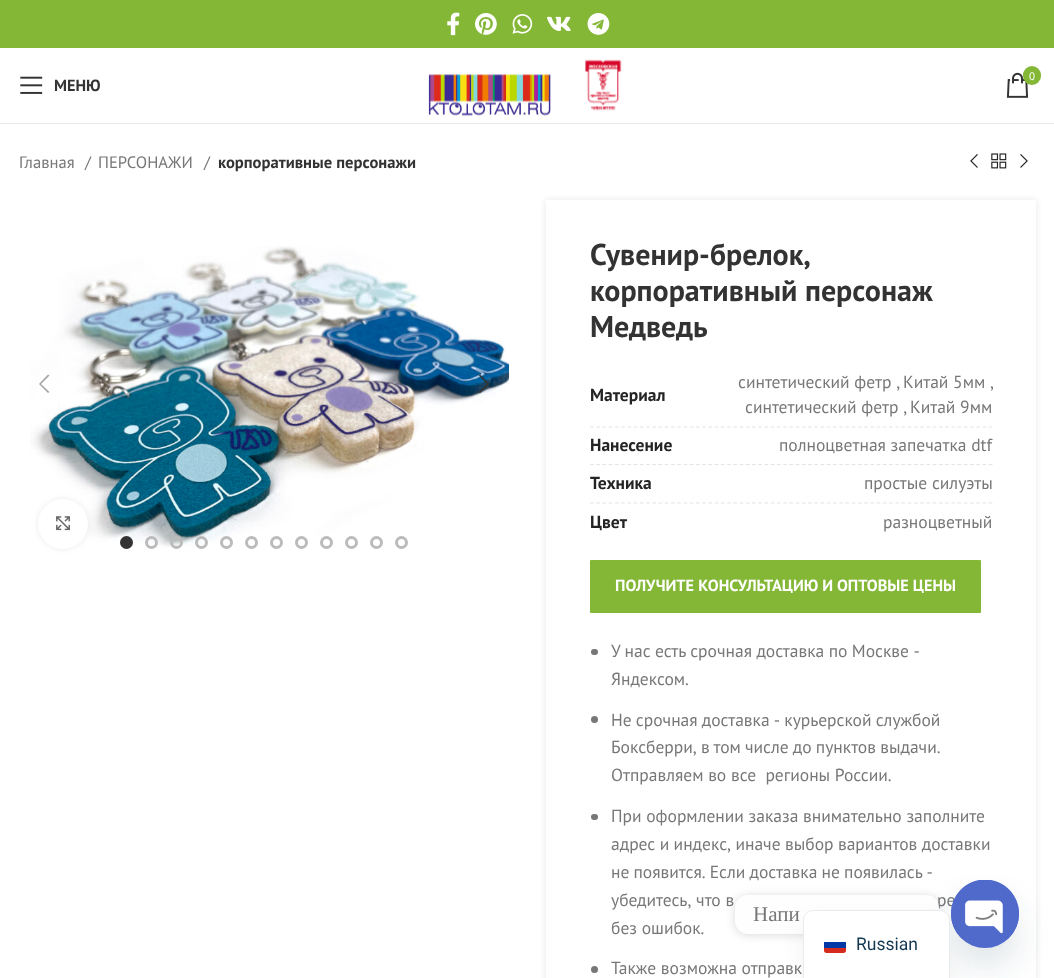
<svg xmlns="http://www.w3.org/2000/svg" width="1054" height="978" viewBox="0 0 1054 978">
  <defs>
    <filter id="blur1" x="-50%" y="-200%" width="200%" height="500%"><feGaussianBlur stdDeviation="3"/></filter>
    <filter id="blur2" x="-50%" y="-200%" width="200%" height="500%"><feGaussianBlur stdDeviation="5"/></filter>
    <filter id="blur3" x="-50%" y="-200%" width="200%" height="500%"><feGaussianBlur stdDeviation="15"/></filter>
    <filter id="blur4" x="-50%" y="-200%" width="200%" height="500%"><feGaussianBlur stdDeviation="12.5"/></filter>
  </defs>
  <rect width="100%" height="100%" fill="#ffffff"/>
  <rect x="0" y="0" width="1054" height="48" fill="#83b735"/>
  <image x="447" y="12" width="13" height="24" href="img1.png"/>
  <image x="475" y="13" width="22" height="22" href="img2.png"/>
  <image x="512" y="14" width="21" height="20" href="img3.png"/>
  <image x="547" y="16" width="24" height="15" href="img4.png"/>
  <image x="587" y="13" width="23" height="22" href="img5.png"/>
  <rect x="0" y="123" width="1054" height="1" fill="#e8e8e8"/>
  <image x="428" y="74" width="123" height="43" href="img6.png"/>
  <image x="585" y="59" width="37" height="52" href="img7.png"/>
  <image x="1006" y="72" width="23" height="26" href="img8.png"/>
  <rect x="1023" y="66" width="18" height="19" rx="9" fill="#83b735"/>
  <text x="1029" y="80" font-family="PT Sans" font-size="11" fill="#ffffff">0</text>
  <image x="20" y="76" width="23" height="18" href="img9.png"/>
  <text x="54" y="91" font-family="PT Sans" font-size="16.25" font-weight="bold" fill="#333333">МЕНЮ</text>
  <text x="19" y="168" font-family="PT Sans" font-size="16.6" fill="#777777">Главная</text>
  <text x="85" y="168" font-family="PT Sans" font-size="16.6" fill="#777777">/</text>
  <text x="98" y="168" font-family="PT Sans" font-size="16.6" fill="#777777">ПЕРСОНАЖИ</text>
  <text x="204" y="168" font-family="PT Sans" font-size="16.6" fill="#777777">/</text>
  <text x="218" y="168" font-family="PT Sans" font-size="16.6" font-weight="bold" fill="#333333">корпоративные персонажи</text>
  <image x="970" y="154" width="8" height="14" href="img10.png"/>
  <image x="991" y="153" width="16" height="16" href="img11.png"/>
  <image x="1020" y="154" width="8" height="14" href="img12.png"/>
  <image x="30" y="246" width="479" height="302" href="img13.png"/>
  <path d="M49.5 375.5L48 374.5L39 384L48 393L49.5 392L41 384Z" fill="#a5a5a5"/>
  <path d="M479 375.5L487 384L479 392L480 393L489.5 384L480 374.5Z" fill="#333333"/>
  <rect x="38" y="499" width="50" height="50" rx="25" fill="#000000" fill-opacity="0.08" filter="url(#blur1)"/>
  <circle cx="63" cy="524" r="25" fill="#ffffff"/>
  <image x="56" y="516" width="14" height="15" href="img14.png"/>
  <circle cx="126.5" cy="542.5" r="5" fill="#333333" stroke="#333333" stroke-width="3"/>
  <circle cx="151.5" cy="542.5" r="5" fill="none" stroke="#bbbbbb" stroke-width="3"/>
  <circle cx="176.5" cy="542.5" r="5" fill="none" stroke="#bbbbbb" stroke-width="3"/>
  <circle cx="201.5" cy="542.5" r="5" fill="none" stroke="#bbbbbb" stroke-width="3"/>
  <circle cx="226.5" cy="542.5" r="5" fill="none" stroke="#bbbbbb" stroke-width="3"/>
  <circle cx="251.5" cy="542.5" r="5" fill="none" stroke="#bbbbbb" stroke-width="3"/>
  <circle cx="276.5" cy="542.5" r="5" fill="none" stroke="#bbbbbb" stroke-width="3"/>
  <circle cx="301.5" cy="542.5" r="5" fill="none" stroke="#bbbbbb" stroke-width="3"/>
  <circle cx="326.5" cy="542.5" r="5" fill="none" stroke="#bbbbbb" stroke-width="3"/>
  <circle cx="351.5" cy="542.5" r="5" fill="none" stroke="#bbbbbb" stroke-width="3"/>
  <circle cx="376.5" cy="542.5" r="5" fill="none" stroke="#bbbbbb" stroke-width="3"/>
  <circle cx="401.5" cy="542.5" r="5" fill="none" stroke="#bbbbbb" stroke-width="3"/>
  <rect x="546" y="200" width="490" height="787" fill="#000000" fill-opacity="0.1" filter="url(#blur1)"/>
  <rect x="546" y="200" width="490" height="778" fill="#ffffff"/>
  <text x="590" y="265" font-family="PT Sans" font-size="30" font-weight="bold" fill="#333333">Сувенир-брелок,</text>
  <text x="590" y="301" font-family="PT Sans" font-size="30" font-weight="bold" fill="#333333">корпоративный персонаж</text>
  <text x="590" y="337" font-family="PT Sans" font-size="30" font-weight="bold" fill="#333333">Медведь</text>
  <path d="M590 427H992.5" fill="none" stroke="#e4e4e4" stroke-width="1.2" stroke-dasharray="3.75 2.48"/>
  <text x="590" y="401" font-family="PT Sans" font-size="17.5" font-weight="bold" fill="#242424">Материал</text>
  <text x="738" y="388" font-family="PT Sans" font-size="17.5" fill="#777777">синтетический фетр ,</text>
  <text x="903" y="388" font-family="PT Sans" font-size="17.5" fill="#777777">Китай 5мм ,</text>
  <text x="745" y="413" font-family="PT Sans" font-size="17.5" fill="#777777">синтетический фетр ,</text>
  <text x="910" y="413" font-family="PT Sans" font-size="17.5" fill="#777777">Китай 9мм</text>
  <path d="M590 464.5H992.5" fill="none" stroke="#e4e4e4" stroke-width="1.2" stroke-dasharray="3.75 2.48"/>
  <text x="590" y="451" font-family="PT Sans" font-size="17.5" font-weight="bold" fill="#242424">Нанесение</text>
  <text x="779" y="451" font-family="PT Sans" font-size="17.5" fill="#777777">полноцветная запечатка dtf</text>
  <path d="M590 503H992.5" fill="none" stroke="#e4e4e4" stroke-width="1.2" stroke-dasharray="3.75 2.48"/>
  <text x="590" y="489" font-family="PT Sans" font-size="17.5" font-weight="bold" fill="#242424">Техника</text>
  <text x="864" y="489" font-family="PT Sans" font-size="17.5" fill="#777777">простые силуэты</text>
  <text x="590" y="528" font-family="PT Sans" font-size="17.5" font-weight="bold" fill="#242424">Цвет</text>
  <text x="883" y="528" font-family="PT Sans" font-size="17.5" fill="#777777">разноцветный</text>
  <rect x="590" y="560" width="391" height="53" rx="1" fill="#83b735"/>
  <text x="615" y="591" font-family="PT Sans" font-size="16.25" font-weight="bold" fill="#ffffff">ПОЛУЧИТЕ КОНСУЛЬТАЦИЮ И ОПТОВЫЕ ЦЕНЫ</text>
  <rect x="591" y="649" width="7" height="6" rx="3" fill="#777777"/>
  <text x="611" y="657" word-spacing="-0.25" font-family="PT Sans" font-size="17.5" fill="#777777">У нас есть срочная доставка по Москве -</text>
  <text x="611" y="685" font-family="PT Sans" font-size="17.5" fill="#777777">Яндексом.</text>
  <circle cx="594.5" cy="719.5" r="3.5" fill="#777777"/>
  <text x="611" y="726" word-spacing="-0.5" font-family="PT Sans" font-size="17.5" fill="#777777">Не срочная доставка - курьерской службой</text>
  <text x="611" y="753" word-spacing="-0.5" font-family="PT Sans" font-size="17.5" fill="#777777">Боксберри, в том числе до пунктов выдачи.</text>
  <text x="611" y="781" font-family="PT Sans" font-size="17.5" fill="#777777" xml:space="preserve">Отправляем во все  регионы России.</text>
  <rect x="591" y="814" width="7" height="6" rx="3" fill="#777777"/>
  <text x="611" y="822" font-family="PT Sans" font-size="17.5" fill="#777777">При оформлении заказа внимательно заполните</text>
  <text x="611" y="850" word-spacing="-0.25" font-family="PT Sans" font-size="17.5" fill="#777777">адрес и индекс, иначе выбор вариантов доставки</text>
  <text x="611" y="878" word-spacing="-0.5" font-family="PT Sans" font-size="17.5" fill="#777777">не появится. Если доставка не появилась -</text>
  <text x="611" y="906" font-family="PT Sans" font-size="17.5" fill="#777777">убедитесь, что в</text>
  <text x="937" y="906" font-family="PT Sans" font-size="17.5" fill="#777777">ре</text>
  <text x="611" y="934" font-family="PT Sans" font-size="17.5" fill="#777777">без ошибок.</text>
  <circle cx="594.5" cy="969.5" r="3.5" fill="#777777"/>
  <text x="611" y="974" font-family="PT Sans" font-size="17.5" fill="#777777">Также возможна отправк</text>
  <rect x="735" y="896" width="204" height="39" rx="13" fill="#000000" fill-opacity="0.15" filter="url(#blur2)"/>
  <rect x="735" y="895" width="204" height="39" rx="13" fill="#fefefe"/>
  <text x="753" y="921" font-family="Liberation Serif" font-size="21" fill="#777777">Напи</text>
  <path d="M939 920.5V908L945 914.5Z" fill="#fefefe"/>
  <rect x="951" y="900" width="68" height="68" rx="34" fill="#49687e" fill-opacity="0.16" filter="url(#blur3)"/>
  <circle cx="985" cy="914" r="34" fill="#4f6aca"/>
  <image x="951" y="880" width="68" height="60" href="img15.png"/>
  <rect x="803" y="923" width="147" height="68" rx="10" fill="#000000" fill-opacity="0.05" filter="url(#blur4)"/>
  <path d="M813 910H940C945.5 910 950 914.5 950 920V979H803V920C803 914.5 807.5 910 813 910Z" fill="#ffffff"/>
  <path d="M813 910.5H940C945 910.5 949.5 915 949.5 920V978.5H803.5V920C803.5 915 808 910.5 813 910.5Z" fill="none" stroke="#143852" stroke-opacity="0.1"/>
  <rect x="824" y="942" width="22" height="6" fill="#0039a6"/>
  <path d="M824 948H846V950.5C846 952 845 953 843.5 953H826.5C825 953 824 952 824 950.5Z" fill="#d52b1e"/>
  <text x="856" y="950" font-family="Roboto" font-size="17.5" fill="#143852">Russian</text>
</svg>
